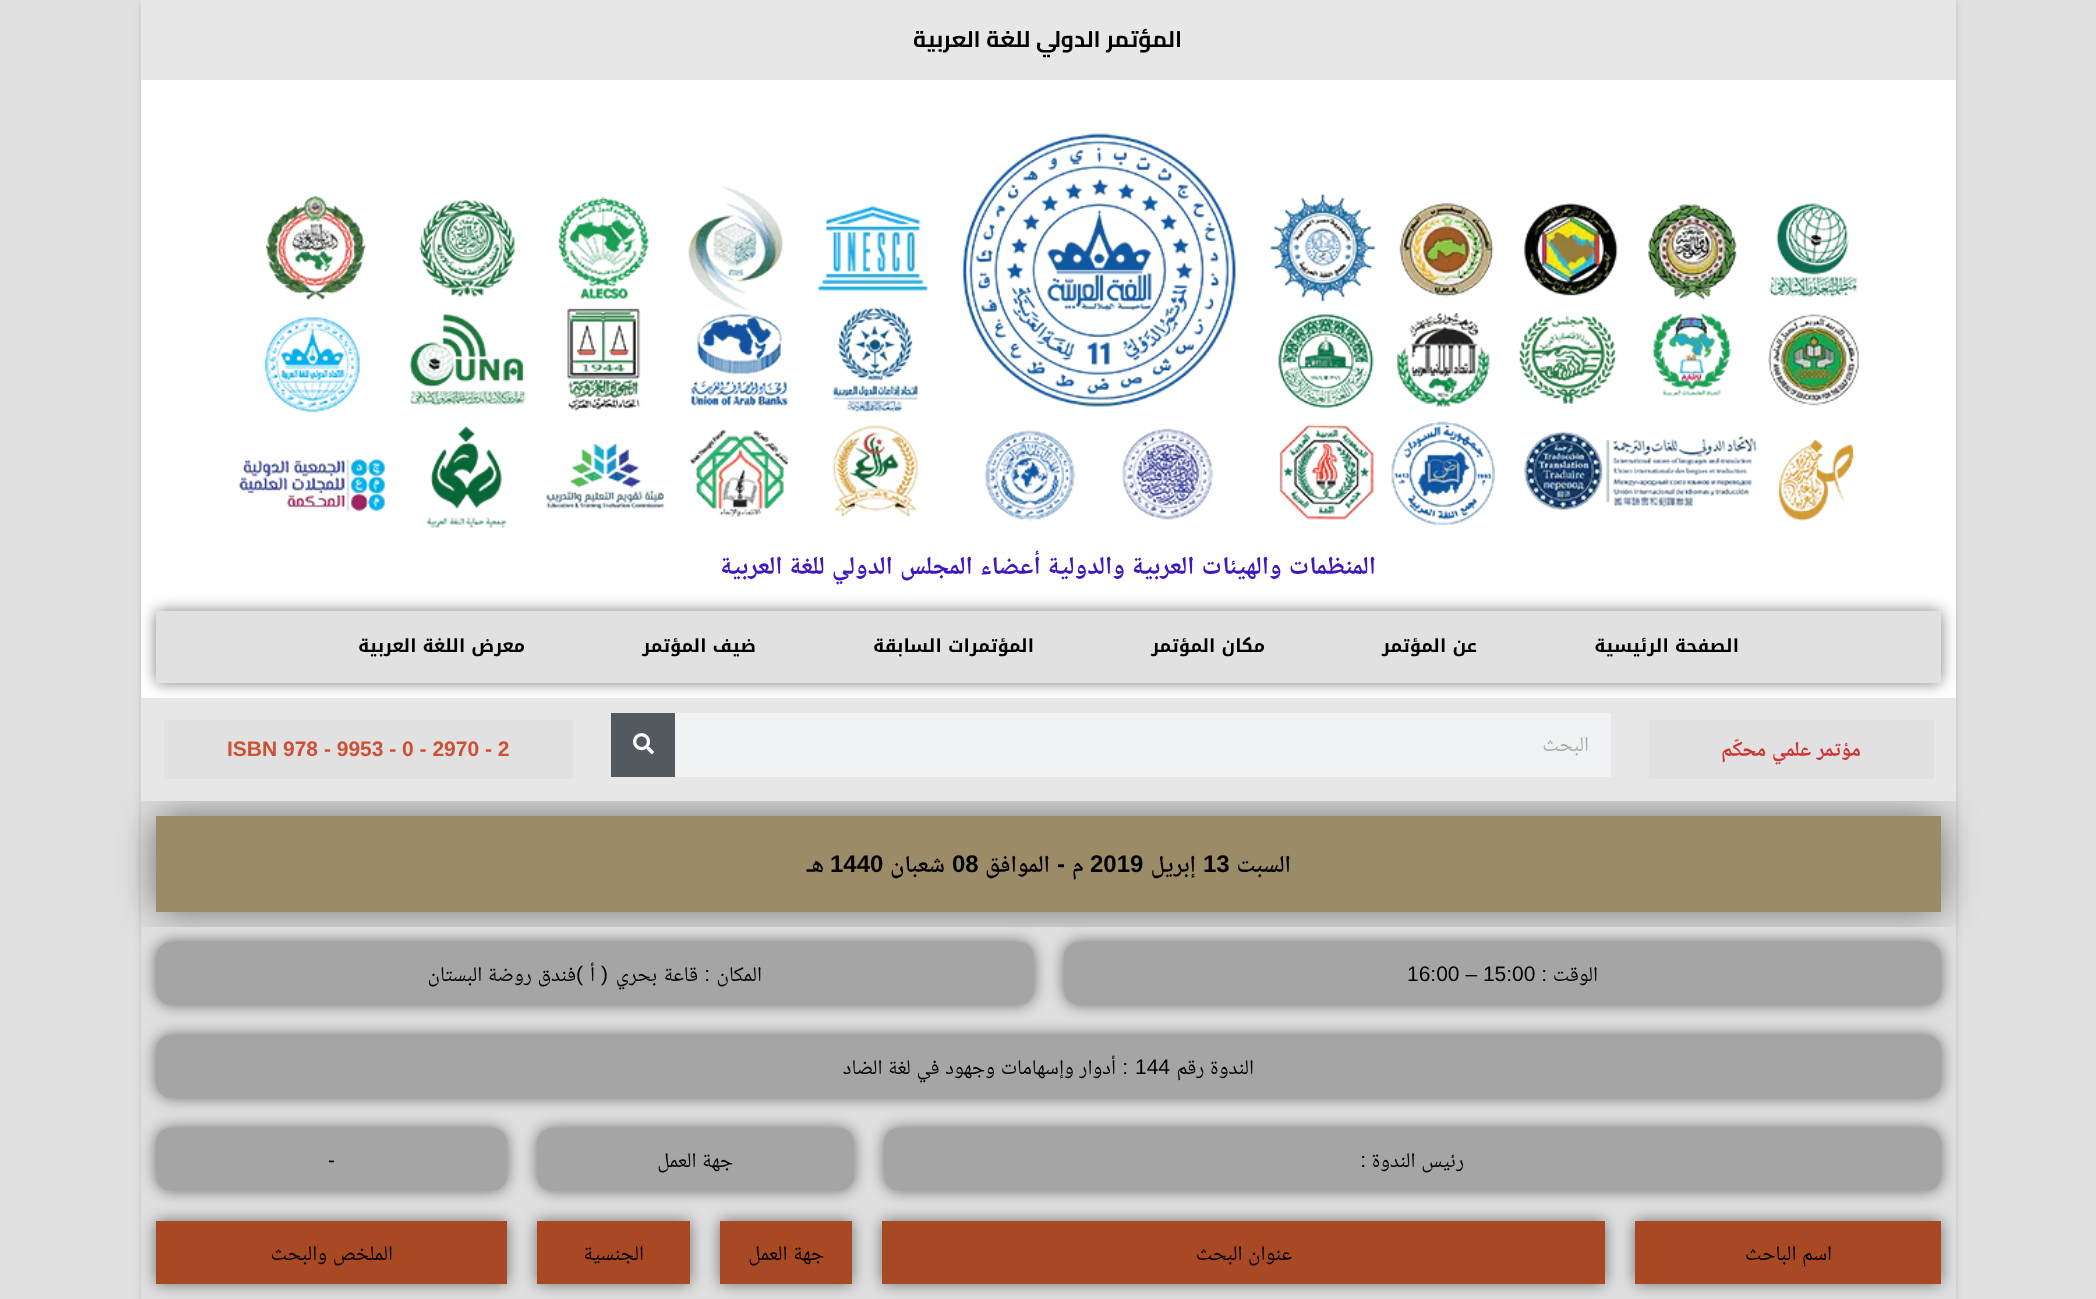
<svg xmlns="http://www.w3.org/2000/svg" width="2096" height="1299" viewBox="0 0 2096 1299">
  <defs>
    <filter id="blur1" x="-50%" y="-200%" width="200%" height="500%"><feGaussianBlur stdDeviation="3"/></filter>
    <filter id="blur2" x="-50%" y="-200%" width="200%" height="500%"><feGaussianBlur stdDeviation="7.5"/></filter>
    <filter id="blur3" x="-50%" y="-200%" width="200%" height="500%"><feGaussianBlur stdDeviation="19"/></filter>
  </defs>
  <rect width="100%" height="100%" fill="#e1e1e1"/>
  <rect x="141" y="2" width="1815" height="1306" fill="#000000" fill-opacity="0.15" filter="url(#blur1)"/>
  <rect x="141" y="80" width="1815" height="618" fill="#ffffff"/>
  <rect x="141" y="0" width="1815" height="80" fill="#e7e7e7"/>
  <text x="1182" y="47" font-family="Cairo" font-size="22.5" font-weight="bold" direction="rtl" fill="#000000">المؤتمر الدولي للغة العربية</text>
  <image x="239" y="133" width="1620" height="395" href="img1.png"/>
  <text x="1376" y="574" word-spacing="1.5" font-family="Noto Naskh Arabic" font-size="25.5" font-weight="bold" direction="rtl" fill="#3e17bd">المنظمات والهيئات العربية والدولية أعضاء المجلس الدولي للغة العربية</text>
  <rect x="156" y="611" width="1785" height="72" fill="#000000" fill-opacity="0.5" filter="url(#blur2)"/>
  <rect x="156" y="611" width="1785" height="72" fill="#e1e1e1"/>
  <text x="1739" y="652" font-family="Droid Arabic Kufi" font-size="18" font-weight="bold" direction="rtl" fill="#000000">الصفحة الرئيسية</text>
  <text x="1477" y="652" font-family="Droid Arabic Kufi" font-size="18" font-weight="bold" direction="rtl" fill="#000000">عن المؤتمر</text>
  <text x="1265" y="652" font-family="Droid Arabic Kufi" font-size="18" font-weight="bold" direction="rtl" fill="#000000">مكان المؤتمر</text>
  <text x="1034" y="652" font-family="Droid Arabic Kufi" font-size="18" font-weight="bold" direction="rtl" fill="#000000">المؤتمرات السابقة</text>
  <text x="756" y="652" font-family="Droid Arabic Kufi" font-size="18" font-weight="bold" direction="rtl" fill="#000000">ضيف المؤتمر</text>
  <text x="525" y="652" font-family="Droid Arabic Kufi" font-size="18" font-weight="bold" direction="rtl" fill="#000000">معرض اللغة العربية</text>
  <rect x="141" y="801" width="1815" height="126" fill="#dfdfdf"/>
  <rect x="156" y="816" width="1785" height="96" fill="#000000" fill-opacity="0.5" filter="url(#blur3)"/>
  <rect x="141" y="698" width="1815" height="103" fill="#e7e7e7"/>
  <rect x="1649" y="720" width="285" height="59" fill="#e1e1e1"/>
  <text x="1861" y="756" word-spacing="1" font-family="Noto Naskh Arabic" font-size="21" font-weight="bold" direction="rtl" fill="#ce3535">مؤتمر علمي محكّم</text>
  <rect x="675" y="713" width="936" height="64" fill="#f1f2f3"/>
  <text x="1589" y="751" font-family="Noto Naskh Arabic" font-size="21" direction="rtl" fill="#aaaaaa">البحث</text>
  <rect x="611" y="713" width="64" height="64" fill="#54595f"/>
  <image x="633" y="733" width="21" height="22" href="img2.png"/>
  <rect x="164" y="720" width="409" height="59" fill="#e1e1e1"/>
  <text x="227" y="756" font-family="Liberation Sans" font-size="21" font-weight="bold" fill="#ce5135">ISBN 978 - 9953 - 0 - 2970 - 2</text>
  <rect x="156" y="816" width="1785" height="96" fill="#9c8b67"/>
  <text x="1291" y="872" font-family="Noto Naskh Arabic" font-size="24" font-weight="600" direction="rtl" fill="#000000">السبت</text>
  <text x="1203" y="872" font-family="Liberation Sans" font-size="24" font-weight="bold" fill="#000000">13</text>
  <text x="1196" y="872" font-family="Noto Naskh Arabic" font-size="24" font-weight="600" direction="rtl" fill="#000000">إبريل</text>
  <text x="1090" y="872" font-family="Liberation Sans" font-size="24" font-weight="bold" fill="#000000">2019</text>
  <text x="1084" y="872" font-family="Noto Naskh Arabic" font-size="24" font-weight="600" direction="rtl" fill="#000000">م</text>
  <text x="1065" y="872" font-family="Liberation Sans" font-size="24" font-weight="bold" direction="rtl" fill="#000000">-</text>
  <text x="1050" y="872" font-family="Noto Naskh Arabic" font-size="24" font-weight="600" direction="rtl" fill="#000000">الموافق</text>
  <text x="952" y="872" font-family="Liberation Sans" font-size="24" font-weight="bold" fill="#000000">08</text>
  <text x="945" y="872" font-family="Noto Naskh Arabic" font-size="24" font-weight="600" direction="rtl" fill="#000000">شعبان</text>
  <text x="830" y="872" font-family="Liberation Sans" font-size="24" font-weight="bold" fill="#000000">1440</text>
  <text x="824" y="872" font-family="Noto Naskh Arabic" font-size="24" font-weight="600" direction="rtl" fill="#000000">هـ</text>
  <rect x="141" y="927" width="1815" height="93" fill="#dfdfdf"/>
  <rect x="1064" y="942" width="877" height="63" rx="15" fill="#000000" fill-opacity="0.5" filter="url(#blur2)"/>
  <rect x="1064" y="942" width="877" height="63" rx="15" fill="#a5a5a5"/>
  <text x="1598" y="981" font-family="Noto Naskh Arabic" font-size="21" direction="rtl" fill="#000000">الوقت</text>
  <text x="1547" y="981" font-family="Liberation Sans" font-size="21" direction="rtl" fill="#000000">:</text>
  <text x="1407" y="981" font-family="Liberation Sans" font-size="21" fill="#000000">16:00 – 15:00</text>
  <rect x="156" y="942" width="878" height="63" rx="15" fill="#000000" fill-opacity="0.5" filter="url(#blur2)"/>
  <rect x="156" y="942" width="878" height="63" rx="15" fill="#a5a5a5"/>
  <text x="762" y="981" font-family="Noto Naskh Arabic" font-size="21" direction="rtl" fill="#000000">المكان</text>
  <text x="710" y="981" font-family="Liberation Sans" font-size="21" direction="rtl" fill="#000000">:</text>
  <text x="698" y="981" font-family="Noto Naskh Arabic" font-size="21" direction="rtl" fill="#000000">قاعة</text>
  <text x="657" y="981" font-family="Noto Naskh Arabic" font-size="21" direction="rtl" fill="#000000">بحري</text>
  <text x="608" y="981" font-family="Liberation Sans" font-size="21" direction="rtl" fill="#000000">(</text>
  <text x="595" y="981" font-family="Noto Naskh Arabic" font-size="21" direction="rtl" fill="#000000">أ</text>
  <text x="583" y="981" font-family="Liberation Sans" font-size="21" direction="rtl" fill="#000000">)</text>
  <text x="576" y="981" word-spacing="1" font-family="Noto Naskh Arabic" font-size="21" direction="rtl" fill="#000000">فندق روضة البستان</text>
  <rect x="141" y="1020" width="1815" height="93" fill="#dfdfdf"/>
  <rect x="156" y="1035" width="1785" height="63" rx="15" fill="#000000" fill-opacity="0.5" filter="url(#blur2)"/>
  <rect x="156" y="1035" width="1785" height="63" rx="15" fill="#a5a5a5"/>
  <text x="1254" y="1074" word-spacing="1" font-family="Noto Naskh Arabic" font-size="21" direction="rtl" fill="#000000">الندوة رقم</text>
  <text x="1135" y="1074" font-family="Liberation Sans" font-size="21" fill="#000000">144</text>
  <text x="1128" y="1074" font-family="Liberation Sans" font-size="21" direction="rtl" fill="#000000">:</text>
  <text x="1116" y="1074" word-spacing="1" font-family="Noto Naskh Arabic" font-size="21" direction="rtl" fill="#000000">أدوار وإسهامات وجهود في لغة الضاد</text>
  <rect x="141" y="1113" width="1815" height="93" fill="#dfdfdf"/>
  <rect x="884" y="1128" width="1057" height="63" rx="15" fill="#000000" fill-opacity="0.5" filter="url(#blur2)"/>
  <rect x="884" y="1128" width="1057" height="63" rx="15" fill="#a5a5a5"/>
  <text x="1464" y="1167" word-spacing="1" font-family="Noto Naskh Arabic" font-size="21" direction="rtl" fill="#000000">رئيس الندوة</text>
  <text x="1366" y="1167" font-family="Liberation Sans" font-size="21" direction="rtl" fill="#000000">:</text>
  <rect x="537" y="1128" width="317" height="63" rx="15" fill="#000000" fill-opacity="0.5" filter="url(#blur2)"/>
  <rect x="537" y="1128" width="317" height="63" rx="15" fill="#a5a5a5"/>
  <text x="733" y="1167" word-spacing="1" font-family="Noto Naskh Arabic" font-size="21" direction="rtl" fill="#000000">جهة العمل</text>
  <rect x="156" y="1128" width="351" height="63" rx="15" fill="#000000" fill-opacity="0.5" filter="url(#blur2)"/>
  <rect x="156" y="1128" width="351" height="63" rx="15" fill="#a5a5a5"/>
  <text x="328" y="1167" font-family="Liberation Sans" font-size="21" fill="#000000">-</text>
  <rect x="141" y="1206" width="1815" height="93" fill="#dfdfdf"/>
  <rect x="1635" y="1221" width="306" height="63" fill="#000000" fill-opacity="0.5" filter="url(#blur2)"/>
  <rect x="1635" y="1221" width="306" height="63" fill="#a84923"/>
  <text x="1832" y="1260" word-spacing="1" font-family="Noto Naskh Arabic" font-size="21" direction="rtl" fill="#000000">اسم الباحث</text>
  <rect x="882" y="1221" width="723" height="63" fill="#000000" fill-opacity="0.5" filter="url(#blur2)"/>
  <rect x="882" y="1221" width="723" height="63" fill="#a84923"/>
  <text x="1292" y="1260" word-spacing="1" font-family="Noto Naskh Arabic" font-size="21" direction="rtl" fill="#000000">عنوان البحث</text>
  <rect x="720" y="1221" width="132" height="63" fill="#000000" fill-opacity="0.5" filter="url(#blur2)"/>
  <rect x="720" y="1221" width="132" height="63" fill="#a84923"/>
  <text x="824" y="1260" word-spacing="1" font-family="Noto Naskh Arabic" font-size="21" direction="rtl" fill="#000000">جهة العمل</text>
  <rect x="537" y="1221" width="153" height="63" fill="#000000" fill-opacity="0.5" filter="url(#blur2)"/>
  <rect x="537" y="1221" width="153" height="63" fill="#a84923"/>
  <text x="644" y="1260" font-family="Noto Naskh Arabic" font-size="21" direction="rtl" fill="#000000">الجنسية</text>
  <rect x="156" y="1221" width="351" height="63" fill="#000000" fill-opacity="0.5" filter="url(#blur2)"/>
  <rect x="156" y="1221" width="351" height="63" fill="#a84923"/>
  <text x="393" y="1260" word-spacing="1" font-family="Noto Naskh Arabic" font-size="21" direction="rtl" fill="#000000">الملخص والبحث</text>
</svg>
